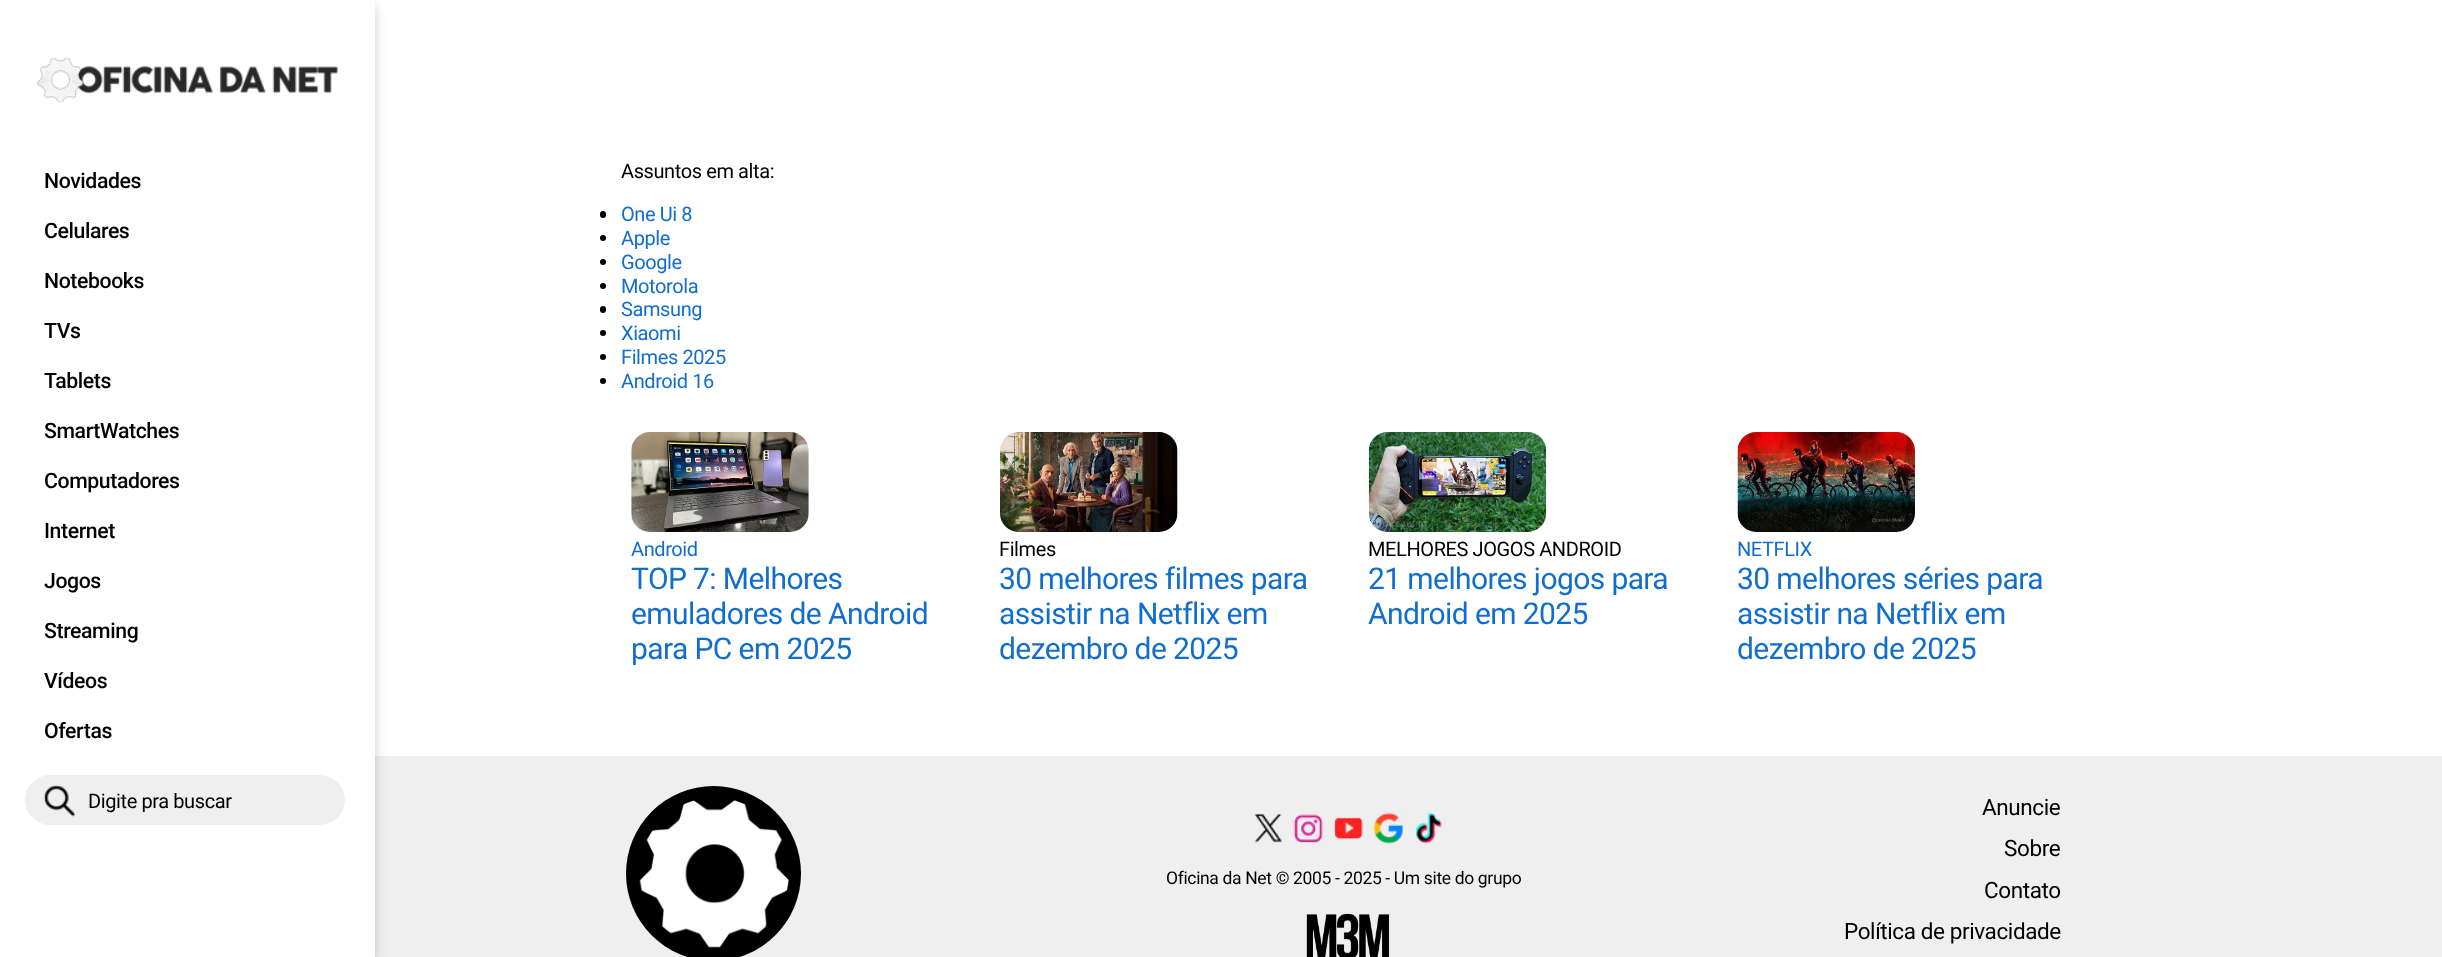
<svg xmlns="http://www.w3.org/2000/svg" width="2442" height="957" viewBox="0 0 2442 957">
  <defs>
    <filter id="blur1" x="-50%" y="-200%" width="200%" height="500%"><feGaussianBlur stdDeviation="6"/></filter>
  </defs>
  <rect width="100%" height="100%" fill="#ffffff"/>
  <rect x="375" y="756" width="2067" height="201" fill="#efefef"/>
  <rect x="0" y="6" width="375" height="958" fill="#000000" fill-opacity="0.2" filter="url(#blur1)"/>
  <rect x="0" y="0" width="375" height="957" fill="#ffffff"/>
  <image x="37" y="57" width="301" height="46" href="img1.png"/>
  <text x="44" y="188" font-family="Roboto" font-size="21.25" font-weight="500" letter-spacing="-0.4" fill="#000000">Novidades</text>
  <text x="44" y="238" font-family="Roboto" font-size="21.25" font-weight="500" letter-spacing="-0.4" fill="#000000">Celulares</text>
  <text x="44" y="288" font-family="Roboto" font-size="21.25" font-weight="500" letter-spacing="-0.4" fill="#000000">Notebooks</text>
  <text x="44" y="338" font-family="Roboto" font-size="21.25" font-weight="500" letter-spacing="-0.4" fill="#000000">TVs</text>
  <text x="44" y="388" font-family="Roboto" font-size="21.25" font-weight="500" letter-spacing="-0.4" fill="#000000">Tablets</text>
  <text x="44" y="438" font-family="Roboto" font-size="21.25" font-weight="500" letter-spacing="-0.4" fill="#000000">SmartWatches</text>
  <text x="44" y="488" font-family="Roboto" font-size="21.25" font-weight="500" letter-spacing="-0.4" fill="#000000">Computadores</text>
  <text x="44" y="538" font-family="Roboto" font-size="21.25" font-weight="500" letter-spacing="-0.4" fill="#000000">Internet</text>
  <text x="44" y="588" font-family="Roboto" font-size="21.25" font-weight="500" letter-spacing="-0.4" fill="#000000">Jogos</text>
  <text x="44" y="638" font-family="Roboto" font-size="21.25" font-weight="500" letter-spacing="-0.4" fill="#000000">Streaming</text>
  <text x="44" y="688" font-family="Roboto" font-size="21.25" font-weight="500" letter-spacing="-0.4" fill="#000000">Vídeos</text>
  <text x="44" y="738" font-family="Roboto" font-size="21.25" font-weight="500" letter-spacing="-0.4" fill="#000000">Ofertas</text>
  <rect x="25" y="775" width="320" height="50" rx="25" fill="#efefef"/>
  <image x="43" y="785" width="32" height="32" href="img2.png"/>
  <text x="88" y="808" font-family="Roboto" font-size="20" letter-spacing="-0.4" fill="#000000">Digite pra buscar</text>
  <text x="621" y="178" font-family="Roboto" font-size="20" letter-spacing="-0.4" fill="#000000">Assuntos em alta:</text>
  <rect x="600" y="211" width="6" height="7" rx="3" fill="#000000"/>
  <text x="621" y="221" font-family="Roboto" font-size="20" letter-spacing="-0.4" fill="#116ecd">One Ui 8</text>
  <circle cx="603" cy="238" r="3" fill="#000000"/>
  <text x="621" y="245" font-family="Roboto" font-size="20" letter-spacing="-0.4" fill="#116ecd">Apple</text>
  <circle cx="603" cy="262" r="3" fill="#000000"/>
  <text x="621" y="269" font-family="Roboto" font-size="20" letter-spacing="-0.4" fill="#116ecd">Google</text>
  <circle cx="603" cy="286" r="3" fill="#000000"/>
  <text x="621" y="293" font-family="Roboto" font-size="20" letter-spacing="-0.4" fill="#116ecd">Motorola</text>
  <rect x="600" y="306" width="6" height="7" rx="3" fill="#000000"/>
  <text x="621" y="316" font-family="Roboto" font-size="20" letter-spacing="-0.4" fill="#116ecd">Samsung</text>
  <circle cx="603" cy="333" r="3" fill="#000000"/>
  <text x="621" y="340" font-family="Roboto" font-size="20" letter-spacing="-0.4" fill="#116ecd">Xiaomi</text>
  <circle cx="603" cy="357" r="3" fill="#000000"/>
  <text x="621" y="364" font-family="Roboto" font-size="20" letter-spacing="-0.4" fill="#116ecd">Filmes 2025</text>
  <circle cx="603" cy="381" r="3" fill="#000000"/>
  <text x="621" y="388" font-family="Roboto" font-size="20" letter-spacing="-0.4" fill="#116ecd">Android 16</text>
  <image x="631" y="432" width="178" height="100" href="img3.png"/>
  <text x="631" y="556" font-family="Roboto" font-size="20" letter-spacing="-0.4" fill="#116ecd">Android</text>
  <text x="631" y="589" font-family="Roboto" font-size="30" letter-spacing="-0.6" fill="#116ecd">TOP 7: Melhores</text>
  <text x="631" y="624" font-family="Roboto" font-size="30" letter-spacing="-0.6" fill="#116ecd">emuladores de Android</text>
  <text x="631" y="659" font-family="Roboto" font-size="30" letter-spacing="-0.6" fill="#116ecd">para PC em 2025</text>
  <image x="1000" y="432" width="178" height="100" href="img4.png"/>
  <text x="999" y="556" font-family="Roboto" font-size="20" letter-spacing="-0.4" fill="#000000">Filmes</text>
  <text x="999" y="589" font-family="Roboto" font-size="30" letter-spacing="-0.6" fill="#116ecd">30 melhores filmes para</text>
  <text x="999" y="624" font-family="Roboto" font-size="30" letter-spacing="-0.6" fill="#116ecd">assistir na Netflix em</text>
  <text x="999" y="659" font-family="Roboto" font-size="30" letter-spacing="-0.6" fill="#116ecd">dezembro de 2025</text>
  <image x="1368" y="432" width="179" height="100" href="img5.png"/>
  <text x="1368" y="556" font-family="Roboto" font-size="20" letter-spacing="-0.4" fill="#000000">MELHORES JOGOS ANDROID</text>
  <text x="1368" y="589" font-family="Roboto" font-size="30" letter-spacing="-0.6" fill="#116ecd">21 melhores jogos para</text>
  <text x="1368" y="624" font-family="Roboto" font-size="30" letter-spacing="-0.6" fill="#116ecd">Android em 2025</text>
  <image x="1737" y="432" width="178" height="100" href="img6.png"/>
  <text x="1737" y="556" font-family="Roboto" font-size="20" letter-spacing="-0.4" fill="#116ecd">NETFLIX</text>
  <text x="1737" y="589" font-family="Roboto" font-size="30" letter-spacing="-0.6" fill="#116ecd">30 melhores séries para</text>
  <text x="1737" y="624" font-family="Roboto" font-size="30" letter-spacing="-0.6" fill="#116ecd">assistir na Netflix em</text>
  <text x="1737" y="659" font-family="Roboto" font-size="30" letter-spacing="-0.6" fill="#116ecd">dezembro de 2025</text>
  <circle cx="713.5" cy="873.5" r="87.5" fill="#000000"/>
  <image x="639" y="800" width="150" height="148" href="img7.png"/>
  <image x="1254" y="813" width="29" height="30" href="img8.png"/>
  <image x="1293" y="814" width="30" height="29" href="img9.png"/>
  <image x="1334" y="817" width="29" height="23" href="img10.png"/>
  <image x="1373" y="813" width="31" height="31" href="img11.png"/>
  <image x="1415" y="813" width="27" height="31" href="img12.png"/>
  <text x="1166" y="884" font-family="Roboto" font-size="17.5" letter-spacing="-0.35" fill="#000000">Oficina da Net © 2005 - 2025 - Um site do grupo</text>
  <image x="1306" y="913" width="84" height="44" href="img13.png"/>
  <text x="1982" y="815" font-family="Roboto" font-size="22.5" letter-spacing="-0.4" fill="#000000">Anuncie</text>
  <text x="2004" y="856" font-family="Roboto" font-size="22.5" letter-spacing="-0.4" fill="#000000">Sobre</text>
  <text x="1984" y="898" font-family="Roboto" font-size="22.5" letter-spacing="-0.4" fill="#000000">Contato</text>
  <text x="1844" y="939" font-family="Roboto" font-size="22.5" letter-spacing="-0.4" fill="#000000">Política de privacidade</text>
</svg>
